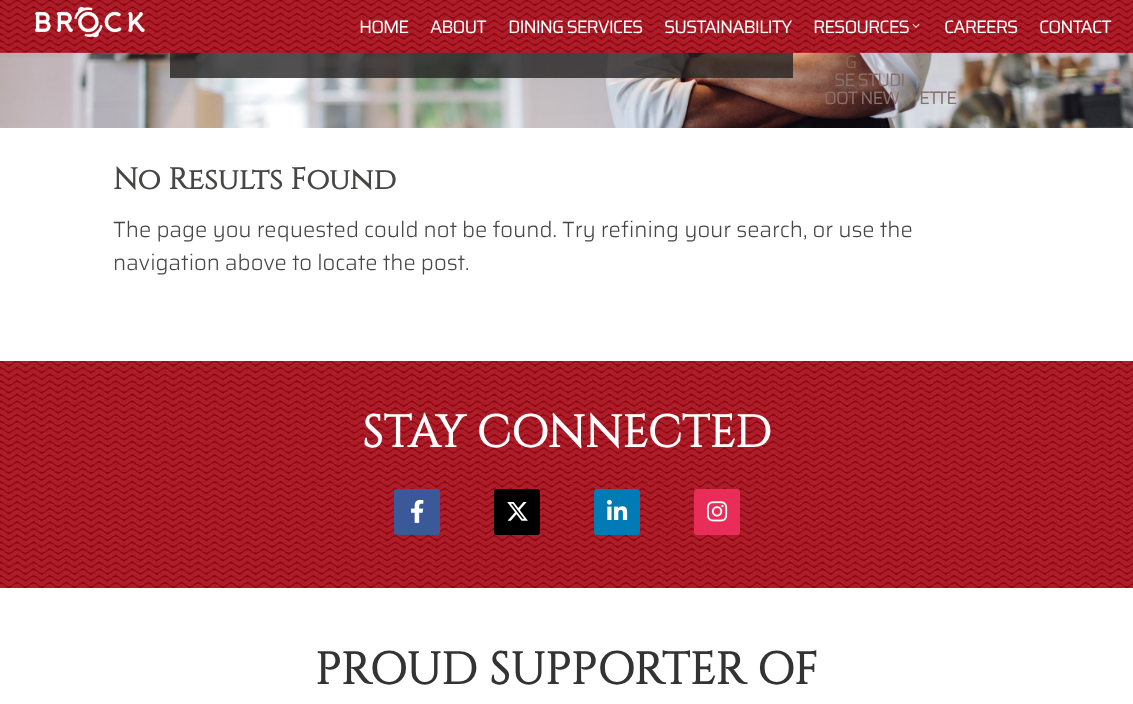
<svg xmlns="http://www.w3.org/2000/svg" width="1133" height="704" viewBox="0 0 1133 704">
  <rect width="100%" height="100%" fill="#ffffff"/>
  <image x="0" y="52" width="1133" height="76" href="img4.png"/>
  <rect x="170" y="52" width="623" height="26" fill="#252323" fill-opacity="0.8"/>
  <image x="0" y="0" width="1133" height="53" href="img1.png"/>
  <image x="34" y="6" width="111" height="32" href="img2.png"/>
  <text x="359" y="33" font-family="Saira" font-size="18" letter-spacing="-1" fill="#ffffff">HOME</text>
  <text x="430" y="33" font-family="Saira" font-size="18" letter-spacing="-1" fill="#ffffff">ABOUT</text>
  <text x="508" y="33" font-family="Saira" font-size="18" letter-spacing="-1" fill="#ffffff">DINING SERVICES</text>
  <text x="664" y="33" font-family="Saira" font-size="18" letter-spacing="-1" fill="#ffffff">SUSTAINABILITY</text>
  <text x="813" y="33" font-family="Saira" font-size="18" letter-spacing="-1" fill="#ffffff">RESOURCES</text>
  <image x="912" y="23" width="8" height="5" href="img3.png"/>
  <text x="845" y="68" font-family="Saira" font-size="18" letter-spacing="-1" fill="#91604c">G</text>
  <text x="834" y="86" font-family="Saira" font-size="18" letter-spacing="-1" fill="#89706b">SE STUDI</text>
  <text x="824" y="104" font-family="Saira" font-size="18" letter-spacing="-1" fill="#89706b">OOT NEW</text>
  <text x="919" y="104" font-family="Saira" font-size="18" letter-spacing="-1" fill="#89706b">ETTE</text>
  <text x="944" y="33" font-family="Saira" font-size="18" letter-spacing="-1" fill="#ffffff">CAREERS</text>
  <text x="1039" y="33" font-family="Saira" font-size="18" letter-spacing="-1" fill="#ffffff">CONTACT</text>
  <text x="113" y="189" font-family="Cinzel" font-size="30" font-weight="bold" fill="#464645">No Results Found</text>
  <text x="113" y="237" font-family="Saira" font-size="22" font-weight="300" fill="#464645">The page you requested could not be found. Try refining your search, or use the</text>
  <text x="113" y="270" font-family="Saira" font-size="22" font-weight="300" fill="#464645">navigation above to locate the post.</text>
  <image x="0" y="361" width="1133" height="227" href="img5.png"/>
  <text x="362" y="447" font-family="Cinzel" font-size="45" font-weight="bold" fill="#ffffff">STAY CONNECTED</text>
  <rect x="394" y="489" width="46" height="46" rx="3" fill="#3b5998"/>
  <image x="411" y="499" width="13" height="24" href="img6.png"/>
  <rect x="494" y="489" width="46" height="46" rx="3" fill="#000000"/>
  <image x="507" y="502" width="21" height="19" href="img7.png"/>
  <rect x="594" y="489" width="46" height="46" rx="3" fill="#007bb6"/>
  <image x="607" y="499" width="21" height="21" href="img8.png"/>
  <rect x="694" y="489" width="46" height="46" rx="3" fill="#ea2c59"/>
  <image x="707" y="501" width="21" height="21" href="img9.png"/>
  <text x="315" y="684" font-family="Cinzel" font-size="45" font-weight="bold" fill="#333333">PROUD SUPPORTER OF</text>
</svg>
